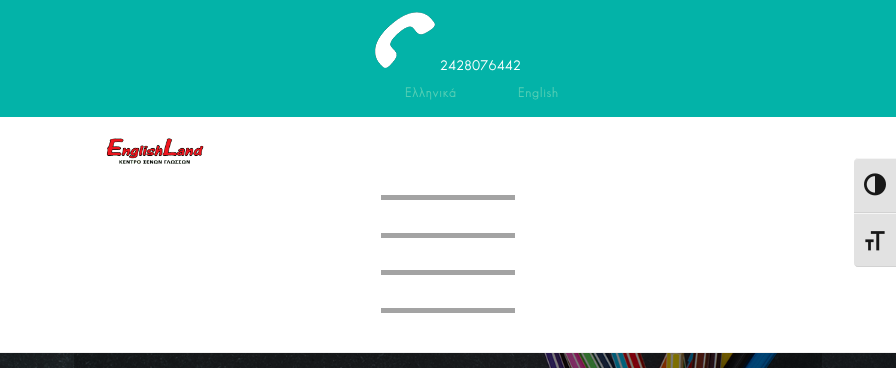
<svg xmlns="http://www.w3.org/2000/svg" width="896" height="368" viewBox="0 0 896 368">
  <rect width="100%" height="100%" fill="#ffffff"/>
  <rect x="0" y="0" width="896" height="117" fill="#03b3a8"/>
  <image x="375" y="12" width="60" height="56" href="img1.png"/>
  <text x="440" y="70" font-family="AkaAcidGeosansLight" font-size="13" font-weight="bold" letter-spacing="1" fill="#ffffff">2428076442</text>
  <text x="405" y="97" font-family="AkaAcidGeosansLight" font-size="13" font-weight="bold" letter-spacing="1" fill="#55ceb4">Ελληνικά</text>
  <text x="518" y="97" font-family="AkaAcidGeosansLight" font-size="13" font-weight="bold" letter-spacing="1" fill="#55ceb4">English</text>
  <rect x="0" y="352" width="896" height="1" fill="#f1f1f1"/>
  <image x="106" y="138" width="98" height="26" href="img2.png"/>
  <rect x="381" y="195" width="134" height="5" fill="#a3a3a3"/>
  <rect x="381" y="233" width="134" height="5" fill="#a3a3a3"/>
  <rect x="381" y="270" width="134" height="5" fill="#a3a3a3"/>
  <rect x="381" y="308" width="134" height="5" fill="#a3a3a3"/>
  <image x="0" y="353" width="896" height="15" href="img3.png"/>
  <rect x="74" y="353" width="748" height="15" fill="#000000" fill-opacity="0.3"/>
  <path d="M858 158H896V213H854V162C854 160 856 158 858 158Z" fill="#e2e2e2"/>
  <path d="M858 159H896V158H858C856 158 854 160 854 162C854 160 856 159 858 159Z" fill="#f5f5f5"/>
  <rect x="854" y="212" width="42" height="1" fill="#d2d2d2"/>
  <image x="864" y="173" width="22" height="23" href="img4.png"/>
  <path d="M854 213H896V267H858C856 267 854 265 854 263Z" fill="#e2e2e2"/>
  <rect x="854" y="213" width="42" height="1" fill="#f5f5f5"/>
  <path d="M896 267V266H858C856 266 854 265 854 263C854 265 856 267 858 267Z" fill="#d2d2d2"/>
  <image x="865" y="231" width="20" height="20" href="img5.png"/>
</svg>
